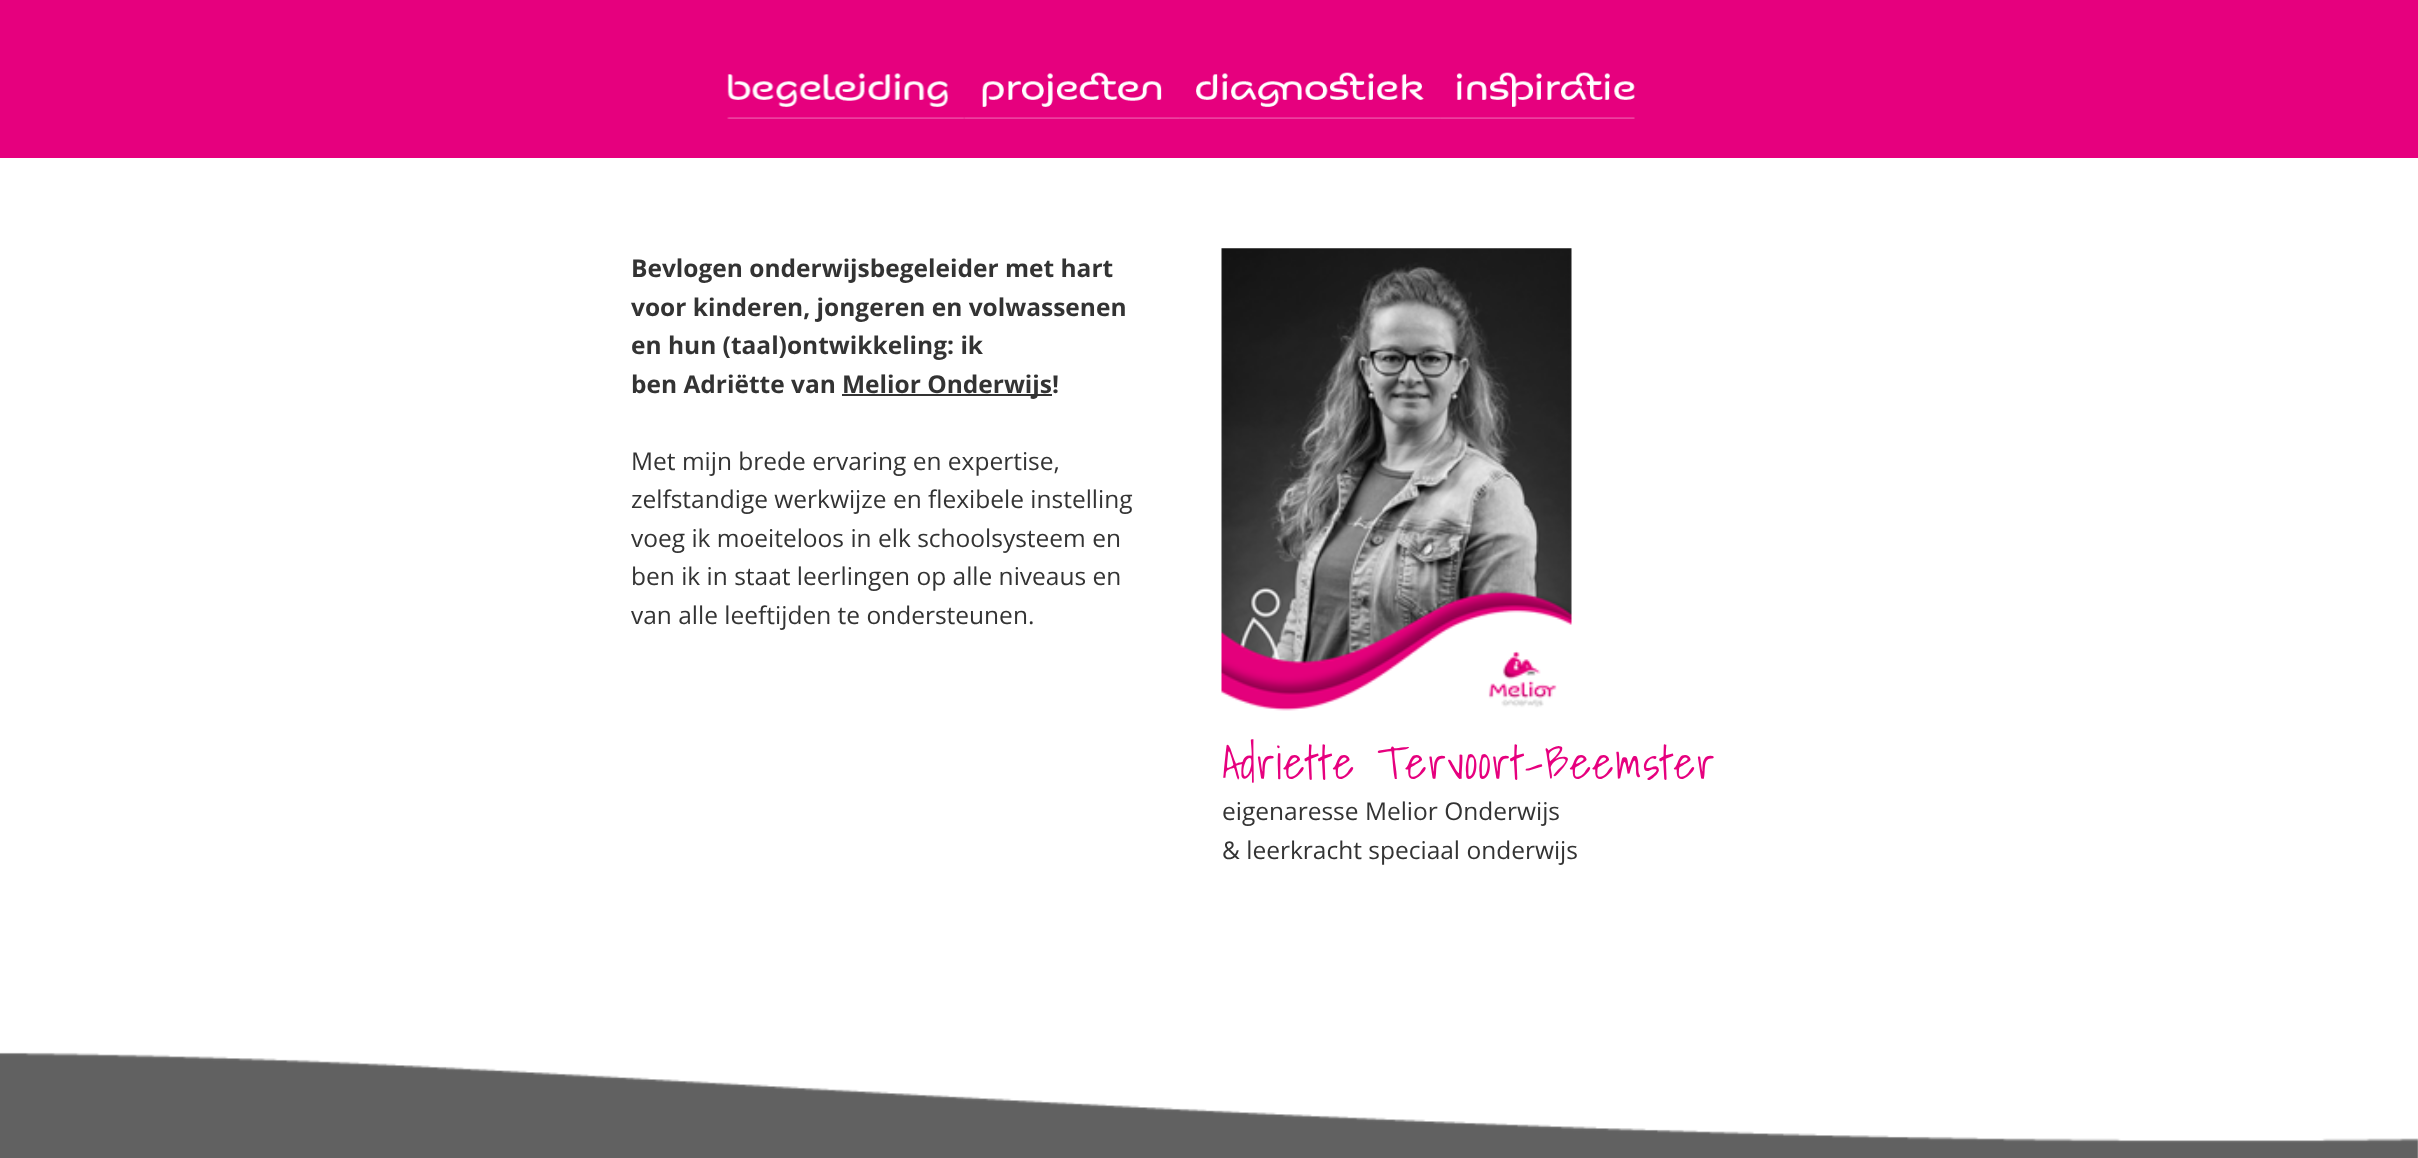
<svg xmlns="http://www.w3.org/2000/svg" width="2418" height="1158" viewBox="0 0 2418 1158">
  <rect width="100%" height="100%" fill="#ffffff"/>
  <rect x="0" y="0" width="2418" height="158" fill="#e6007e"/>
  <image x="727" y="73" width="237" height="46" href="img1.png"/>
  <image x="964" y="72" width="216" height="47" href="img2.png"/>
  <image x="1179" y="72" width="262" height="47" href="img3.png"/>
  <image x="1440" y="72" width="195" height="47" href="img4.png"/>
  <text x="631" y="277" font-family="Open Sans" font-size="24.5" font-weight="bold" fill="#333333">Bevlogen onderwijsbegeleider met hart</text>
  <text x="631" y="316" font-family="Open Sans" font-size="24.5" font-weight="bold" fill="#333333">voor kinderen, jongeren en volwassenen</text>
  <text x="631" y="354" font-family="Open Sans" font-size="24.5" font-weight="bold" fill="#333333">en hun (taal)ontwikkeling: ik</text>
  <text x="631" y="393" font-family="Open Sans" font-size="24.5" font-weight="bold" fill="#333333">ben Adriëtte van</text>
  <rect x="842" y="394" width="210" height="2" fill="#333333"/>
  <text x="842" y="393" font-family="Open Sans" font-size="24.5" font-weight="bold" fill="#333333">Melior Onderwijs!</text>
  <text x="631" y="470" font-family="Open Sans" font-size="24.5" fill="#333333">Met mijn brede ervaring en expertise,</text>
  <text x="631" y="508" font-family="Open Sans" font-size="24.5" fill="#333333">zelfstandige werkwijze en flexibele instelling</text>
  <text x="631" y="547" font-family="Open Sans" font-size="24.5" fill="#333333">voeg ik moeiteloos in elk schoolsysteem en</text>
  <text x="631" y="585" font-family="Open Sans" font-size="24.5" fill="#333333">ben ik in staat leerlingen op alle niveaus en</text>
  <text x="631" y="624" font-family="Open Sans" font-size="24.5" fill="#333333">van alle leeftijden te ondersteunen.</text>
  <image x="1221" y="248" width="351" height="463" href="img5.png"/>
  <text x="1222" y="779" font-family="Shadows Into Light" font-size="45.5" font-weight="300" letter-spacing="1.35" fill="#e6007e">Adriette Tervoort-Beemster</text>
  <text x="1222" y="820" font-family="Open Sans" font-size="24.5" fill="#333333">eigenaresse Melior Onderwijs</text>
  <text x="1222" y="859" font-family="Open Sans" font-size="24.5" fill="#333333">&amp; leerkracht speciaal onderwijs</text>
  <image x="0" y="1052" width="2418" height="106" href="img6.png"/>
</svg>
